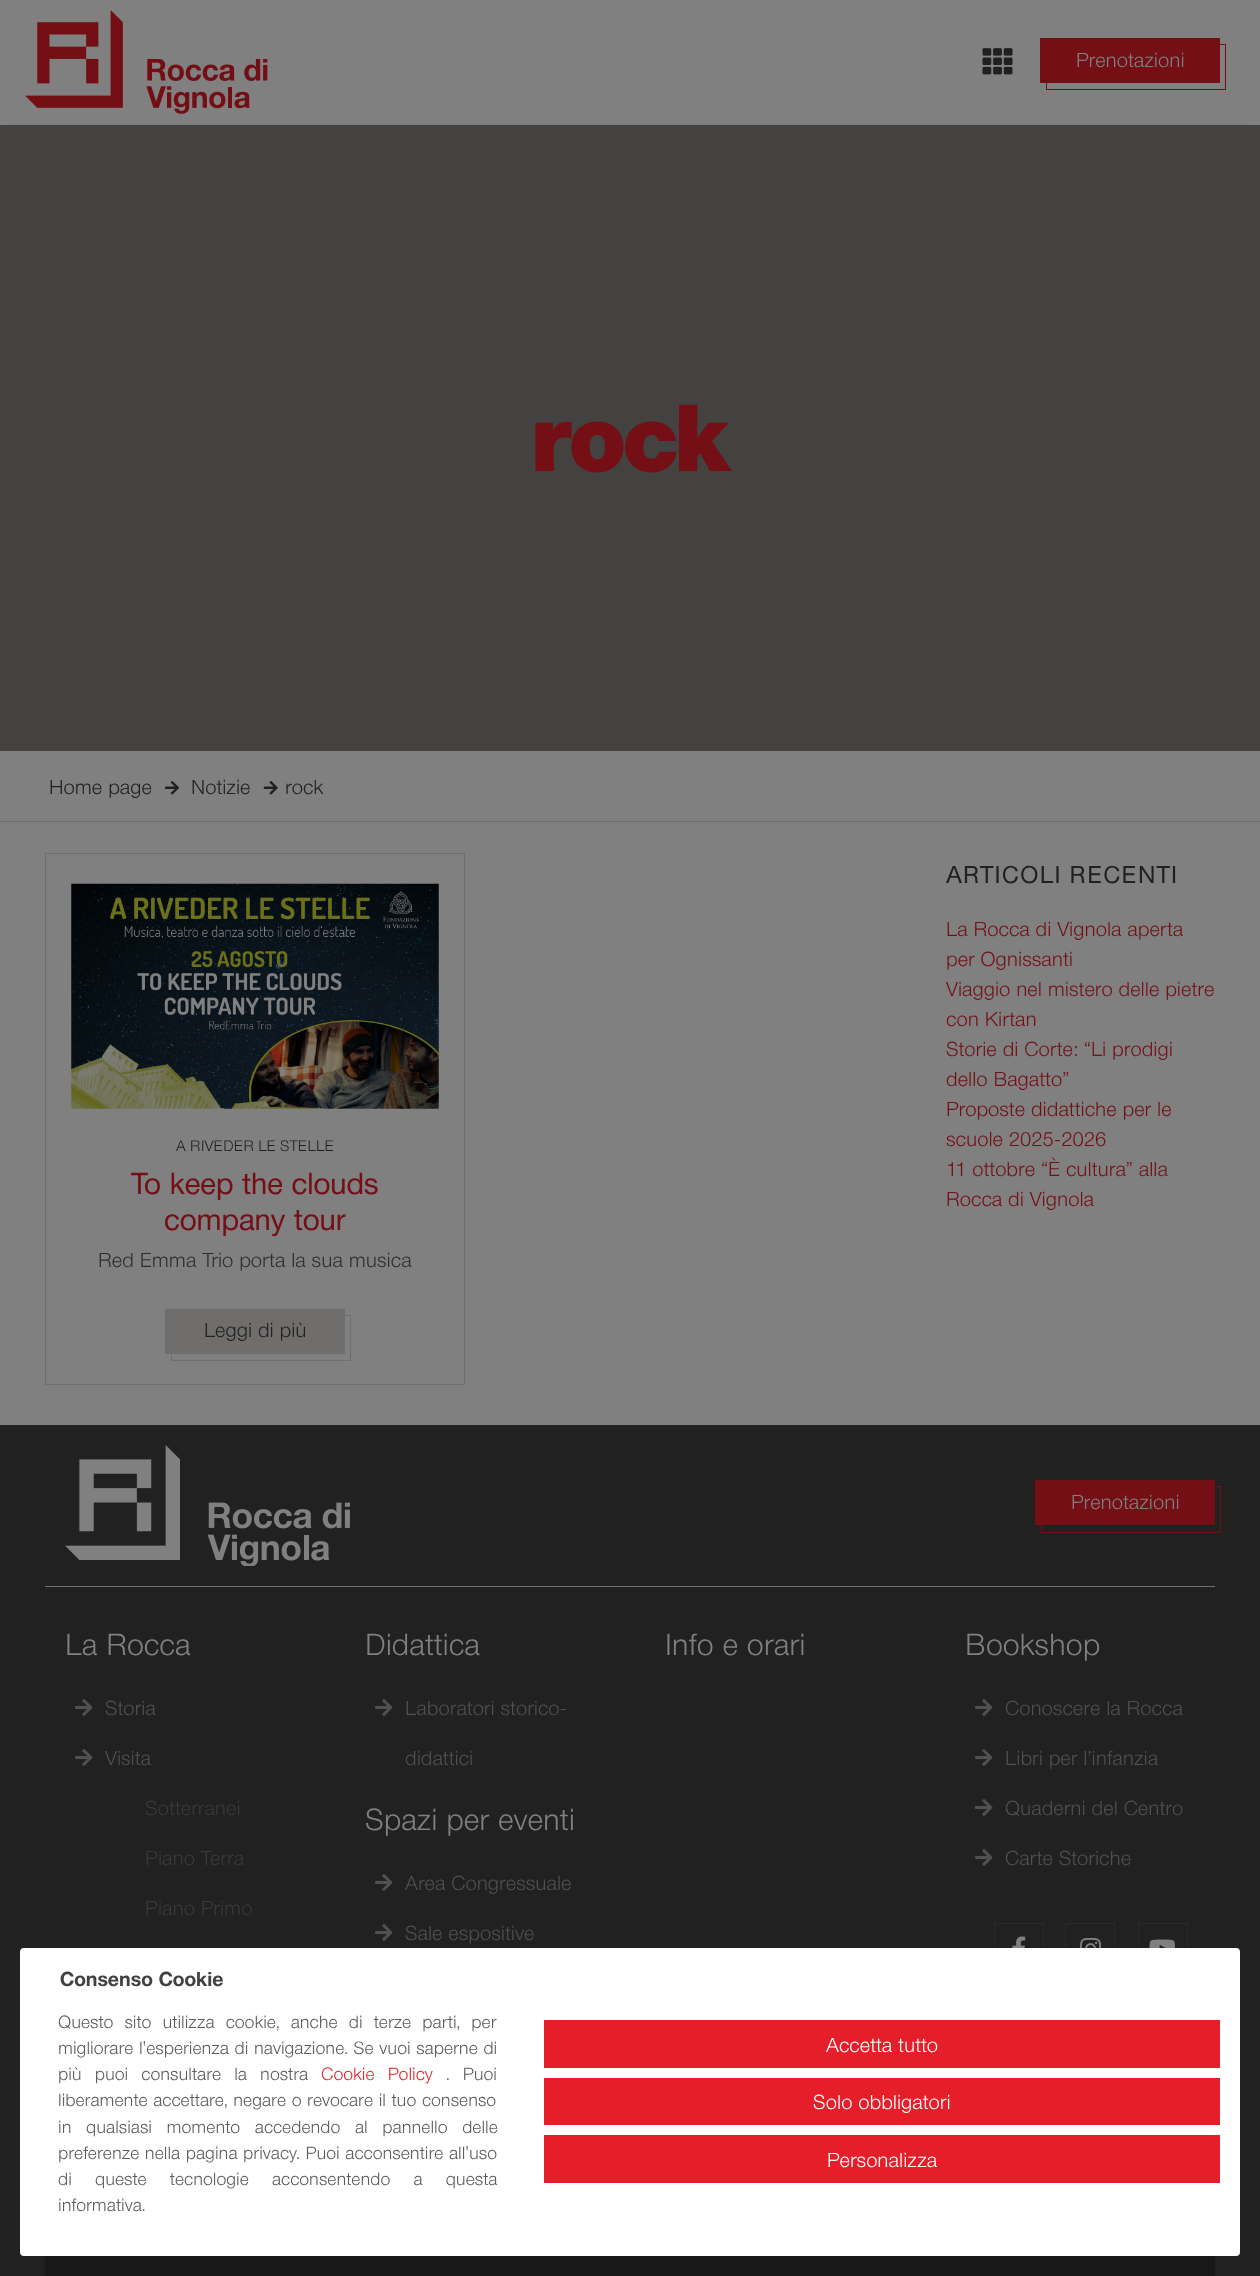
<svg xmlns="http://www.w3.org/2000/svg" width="1260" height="2276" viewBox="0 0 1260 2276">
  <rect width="100%" height="100%" fill="#808080"/>
  <rect x="15" y="124" width="1230" height="1" fill="#797978"/>
  <image x="25" y="10" width="243" height="104" href="img1.png"/>
  <image x="982" y="48" width="31" height="27" href="img2.png"/>
  <rect x="1046.5" y="44.5" width="179" height="45" fill="none" stroke="#730f15"/>
  <rect x="1040" y="38" width="180" height="45" fill="#730f15"/>
  <text x="1076" y="67" font-family="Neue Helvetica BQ" font-size="20" font-weight="300" fill="#808080">Prenotazioni</text>
  <rect x="0" y="125" width="1260" height="626" fill="#434240"/>
  <text x="531" y="471" font-family="Neue Helvetica BQ" font-size="94" font-weight="900" letter-spacing="-3" fill="#730f15">rock</text>
  <rect x="0" y="821" width="1260" height="1" fill="#6f6e6c"/>
  <text x="49" y="794" font-family="Neue Helvetica BQ" font-size="20" font-weight="300" fill="#212121">Home page</text>
  <image x="165" y="781" width="14" height="14" href="img3.png"/>
  <text x="191" y="794" font-family="Neue Helvetica BQ" font-size="20" font-weight="300" fill="#212121">Notizie</text>
  <image x="263" y="781" width="15" height="14" href="img4.png"/>
  <text x="285" y="794" font-family="Neue Helvetica BQ" font-size="20" font-weight="300" fill="#212121">rock</text>
  <text x="946" y="883" font-family="Neue Helvetica BQ" font-size="24" letter-spacing="1.25" fill="#212121">ARTICOLI RECENTI</text>
  <text x="946" y="936" font-family="Neue Helvetica BQ" font-size="20" font-weight="300" fill="#730f15">La Rocca di Vignola aperta</text>
  <text x="946" y="966" font-family="Neue Helvetica BQ" font-size="20" font-weight="300" fill="#730f15">per Ognissanti</text>
  <text x="946" y="996" font-family="Neue Helvetica BQ" font-size="20" font-weight="300" fill="#730f15">Viaggio nel mistero delle pietre</text>
  <text x="946" y="1026" font-family="Neue Helvetica BQ" font-size="20" font-weight="300" fill="#730f15">con Kirtan</text>
  <text x="946" y="1056" font-family="Neue Helvetica BQ" font-size="20" font-weight="300" fill="#730f15">Storie di Corte: “Li prodigi</text>
  <text x="946" y="1086" font-family="Neue Helvetica BQ" font-size="20" font-weight="300" fill="#730f15">dello Bagatto”</text>
  <text x="946" y="1116" font-family="Neue Helvetica BQ" font-size="20" font-weight="300" fill="#730f15">Proposte didattiche per le</text>
  <text x="946" y="1146" font-family="Neue Helvetica BQ" font-size="20" font-weight="300" fill="#730f15">scuole 2025-2026</text>
  <text x="946" y="1176" font-family="Neue Helvetica BQ" font-size="20" font-weight="300" fill="#730f15">11 ottobre “È cultura” alla</text>
  <text x="946" y="1206" font-family="Neue Helvetica BQ" font-size="20" font-weight="300" fill="#730f15">Rocca di Vignola</text>
  <rect x="45.5" y="853.5" width="419" height="531" fill="none" stroke="#6f6e6c"/>
  <image x="71" y="883" width="368" height="226" href="img5.png"/>
  <text x="176" y="1151" font-family="Neue Helvetica BQ" font-size="15" font-weight="300" fill="#212121">A RIVEDER LE STELLE</text>
  <text x="131" y="1194" font-family="Neue Helvetica BQ" font-size="30" fill="#730f15">To keep the clouds</text>
  <text x="164" y="1230" font-family="Neue Helvetica BQ" font-size="30" fill="#730f15">company tour</text>
  <text x="98" y="1267" font-family="Neue Helvetica BQ" font-size="20" font-weight="300" fill="#2d2e30">Red Emma Trio porta la sua musica</text>
  <rect x="171.5" y="1315.5" width="179" height="45" fill="none" stroke="#6f6e6c"/>
  <rect x="165" y="1309" width="180" height="45" fill="#6f6e6c"/>
  <text x="204" y="1337" font-family="Neue Helvetica BQ" font-size="20" font-weight="300" fill="#212121">Leggi di più</text>
  <rect x="0" y="1425" width="1260" height="851" fill="#212121"/>
  <rect x="45" y="1586" width="1170" height="1" fill="#6f6e6c"/>
  <image x="65" y="1445" width="285" height="121" href="img6.png"/>
  <rect x="1041.5" y="1486.5" width="179" height="46" fill="none" stroke="#730f15"/>
  <rect x="1035" y="1480" width="180" height="45" fill="#730f15"/>
  <text x="1071" y="1509" font-family="Neue Helvetica BQ" font-size="20" font-weight="300" fill="#808080">Prenotazioni</text>
  <text x="65" y="1655" font-family="Neue Helvetica BQ" font-size="30" font-weight="300" fill="#808080">La Rocca</text>
  <image x="75" y="1699" width="18" height="17" href="img7.png"/>
  <text x="105" y="1715" font-family="Neue Helvetica BQ" font-size="20" font-weight="300" fill="#505050">Storia</text>
  <image x="75" y="1749" width="18" height="17" href="img7.png"/>
  <text x="105" y="1765" font-family="Neue Helvetica BQ" font-size="20" font-weight="300" fill="#505050">Visita</text>
  <text x="145" y="1815" font-family="Neue Helvetica BQ" font-size="20" font-weight="300" fill="#393939">Sotterranei</text>
  <text x="145" y="1865" font-family="Neue Helvetica BQ" font-size="20" font-weight="300" fill="#393939">Piano Terra</text>
  <text x="145" y="1915" font-family="Neue Helvetica BQ" font-size="20" font-weight="300" fill="#393939">Piano Primo</text>
  <text x="365" y="1655" font-family="Neue Helvetica BQ" font-size="30" font-weight="300" fill="#808080">Didattica</text>
  <image x="375" y="1699" width="18" height="17" href="img7.png"/>
  <text x="405" y="1715" font-family="Neue Helvetica BQ" font-size="20" font-weight="300" fill="#505050">Laboratori storico-</text>
  <text x="405" y="1765" font-family="Neue Helvetica BQ" font-size="20" font-weight="300" fill="#505050">didattici</text>
  <text x="365" y="1830" font-family="Neue Helvetica BQ" font-size="30" font-weight="300" fill="#808080">Spazi per eventi</text>
  <image x="375" y="1874" width="18" height="17" href="img7.png"/>
  <text x="405" y="1890" font-family="Neue Helvetica BQ" font-size="20" font-weight="300" fill="#505050">Area Congressuale</text>
  <image x="375" y="1924" width="18" height="17" href="img7.png"/>
  <text x="405" y="1940" font-family="Neue Helvetica BQ" font-size="20" font-weight="300" fill="#505050">Sale espositive</text>
  <text x="665" y="1655" font-family="Neue Helvetica BQ" font-size="30" font-weight="300" fill="#808080">Info e orari</text>
  <text x="965" y="1655" font-family="Neue Helvetica BQ" font-size="30" font-weight="300" fill="#808080">Bookshop</text>
  <image x="975" y="1699" width="18" height="17" href="img7.png"/>
  <text x="1005" y="1715" font-family="Neue Helvetica BQ" font-size="20" font-weight="300" fill="#505050">Conoscere la Rocca</text>
  <image x="975" y="1749" width="18" height="17" href="img7.png"/>
  <text x="1005" y="1765" font-family="Neue Helvetica BQ" font-size="20" font-weight="300" fill="#505050">Libri per l’infanzia</text>
  <image x="975" y="1799" width="18" height="17" href="img7.png"/>
  <text x="1005" y="1815" font-family="Neue Helvetica BQ" font-size="20" font-weight="300" fill="#505050">Quaderni del Centro</text>
  <image x="975" y="1849" width="18" height="17" href="img7.png"/>
  <text x="1005" y="1865" font-family="Neue Helvetica BQ" font-size="20" font-weight="300" fill="#505050">Carte Storiche</text>
  <rect x="994.5" y="1923.5" width="49" height="49" fill="none" stroke="#2a2a2a"/>
  <image x="1012" y="1936" width="14" height="12" href="img8.png"/>
  <rect x="1065.5" y="1923.5" width="49" height="49" fill="none" stroke="#2a2a2a"/>
  <image x="1080" y="1938" width="22" height="10" href="img9.png"/>
  <rect x="1138.5" y="1923.5" width="49" height="49" fill="none" stroke="#2a2a2a"/>
  <image x="1149" y="1939" width="27" height="9" href="img10.png"/>
  <rect x="45" y="2256" width="1170" height="20" fill="#181818"/>
  <rect x="20" y="1948" width="1220" height="308" rx="4" fill="#ffffff"/>
  <text x="60" y="1986" font-family="Neue Helvetica BQ" font-size="20" font-weight="bold" fill="#414141">Consenso Cookie</text>
  <text x="58" y="2028" word-spacing="6" font-family="Neue Helvetica BQ" font-size="17.5" font-weight="300" fill="#595c5f">Questo sito utilizza cookie, anche di terze parti, per</text>
  <text x="58" y="2054" word-spacing="0.5" font-family="Neue Helvetica BQ" font-size="17.5" font-weight="300" fill="#595c5f">migliorare l'esperienza di navigazione. Se vuoi saperne di</text>
  <text x="58" y="2080" word-spacing="8" font-family="Neue Helvetica BQ" font-size="17.5" font-weight="300" fill="#595c5f">più puoi consultare la nostra</text>
  <text x="321" y="2080" word-spacing="8" font-family="Neue Helvetica BQ" font-size="17.5" font-weight="300" fill="#e61e29">Cookie Policy</text>
  <text x="446" y="2080" word-spacing="8" font-family="Neue Helvetica BQ" font-size="17.5" font-weight="300" fill="#595c5f">. Puoi</text>
  <text x="58" y="2106" word-spacing="0.5" font-family="Neue Helvetica BQ" font-size="17.5" font-weight="300" fill="#595c5f">liberamente accettare, negare o revocare il tuo consenso</text>
  <text x="58" y="2133" word-spacing="9.5" font-family="Neue Helvetica BQ" font-size="17.5" font-weight="300" fill="#595c5f">in qualsiasi momento accedendo al pannello delle</text>
  <text x="58" y="2159" word-spacing="0.5" font-family="Neue Helvetica BQ" font-size="17.5" font-weight="300" fill="#595c5f">preferenze nella pagina privacy. Puoi acconsentire all'uso</text>
  <text x="58" y="2185" word-spacing="18" font-family="Neue Helvetica BQ" font-size="17.5" font-weight="300" fill="#595c5f">di queste tecnologie acconsentendo a questa</text>
  <text x="58" y="2211" font-family="Neue Helvetica BQ" font-size="17.5" font-weight="300" fill="#595c5f">informativa.</text>
  <rect x="544" y="2020" width="676" height="48" fill="#e61e29"/>
  <text x="826" y="2052" font-family="Neue Helvetica BQ" font-size="20" font-weight="300" fill="#ffffff">Accetta tutto</text>
  <rect x="544" y="2078" width="676" height="47" fill="#e61e29"/>
  <text x="813" y="2109" font-family="Neue Helvetica BQ" font-size="20" font-weight="300" fill="#ffffff">Solo obbligatori</text>
  <rect x="544" y="2135" width="676" height="48" fill="#e61e29"/>
  <text x="827" y="2167" font-family="Neue Helvetica BQ" font-size="20" font-weight="300" fill="#ffffff">Personalizza</text>
</svg>
